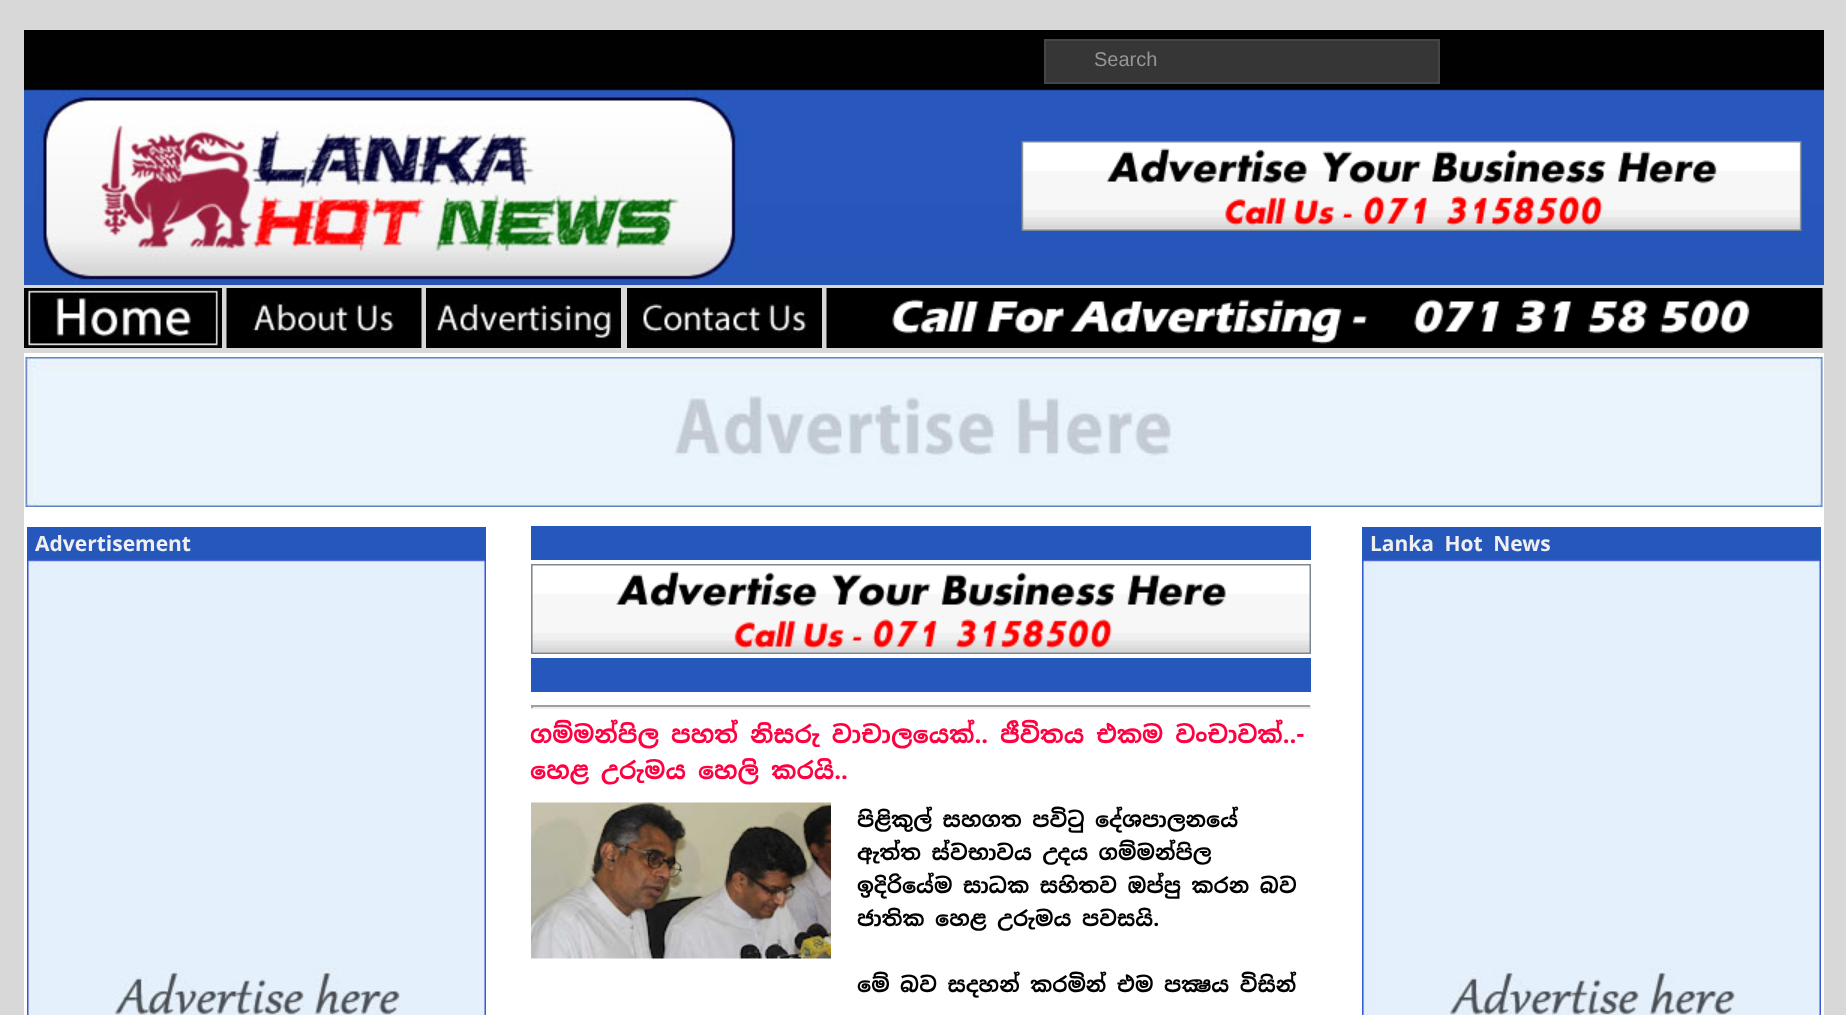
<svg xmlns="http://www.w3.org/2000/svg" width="1846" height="1015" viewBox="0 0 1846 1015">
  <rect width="100%" height="100%" fill="#d8d8d8"/>
  <image x="24" y="30" width="1800" height="255" href="img1.png"/>
  <rect x="1045" y="40" width="394" height="43" fill="#373636" stroke="#454545" stroke-width="2"/>
  <text x="1094" y="66" font-family="Liberation Sans" font-size="20" fill="#969696">Search</text>
  <image x="1021" y="141" width="781" height="90" href="img2.png"/>
  <image x="24" y="288" width="198" height="60" href="img3.png"/>
  <image x="226" y="288" width="196" height="60" href="img4.png"/>
  <image x="426" y="288" width="195" height="60" href="img5.png"/>
  <image x="627" y="288" width="195" height="60" href="img6.png"/>
  <image x="826" y="288" width="997" height="60" href="img7.png"/>
  <rect x="24" y="353" width="1800" height="662" fill="#ffffff"/>
  <image x="25" y="357" width="1798" height="150" href="img8.png"/>
  <rect x="27" y="527" width="459" height="33" fill="#2657bb"/>
  <text x="35" y="551" font-family="Noto Sans Sinhala" font-size="21" font-weight="bold" fill="#efefef">Advertisement</text>
  <image x="27" y="559" width="459" height="456" href="img9.png"/>
  <rect x="1362" y="527" width="459" height="33" fill="#2657bb"/>
  <text x="1370" y="551" font-family="Noto Sans Sinhala" font-size="21" font-weight="bold" fill="#efefef">Lanka Hot News</text>
  <image x="1362" y="559" width="459" height="456" href="img10.png"/>
  <rect x="531" y="526" width="780" height="34" fill="#2657bb"/>
  <image x="531" y="564" width="780" height="90" href="img11.png"/>
  <rect x="531" y="658" width="780" height="34" fill="#2657bb"/>
  <rect x="531" y="705" width="780" height="2" fill="#9f9f9f"/>
  <rect x="1310" y="705" width="1" height="3" fill="#eeeeee"/>
  <rect x="531" y="707" width="780" height="2" fill="#eeeeee"/>
  <rect x="531" y="705" width="2" height="3" fill="#9f9f9f"/>
  <text x="530" y="743" font-family="Noto Sans Sinhala" font-size="24" font-weight="bold" fill="#ff0040">ගම්මන්පිල පහත් නිසරු වාචාලයෙක්.. ජීවිතය එකම වංචාවක්..-</text>
  <text x="530" y="779" font-family="Noto Sans Sinhala" font-size="24" font-weight="bold" fill="#ff0040">හෙළ උරුමය හෙලි කරයි..</text>
  <image x="531" y="802" width="300" height="157" href="img12.png"/>
  <text x="857" y="827" font-family="Noto Sans Sinhala" font-size="21" font-weight="bold" fill="#000000">පිළිකුල් සහගත පවිටු දේශපාලනයේ</text>
  <text x="857" y="860" font-family="Noto Sans Sinhala" font-size="21" font-weight="bold" fill="#000000">ඇත්ත ස්වභාවය උදය ගම්මන්පිල</text>
  <text x="857" y="893" font-family="Noto Sans Sinhala" font-size="21" font-weight="bold" fill="#000000">ඉදිරියේම සාධක සහිතව ඔප්පු කරන බව</text>
  <text x="857" y="926" font-family="Noto Sans Sinhala" font-size="21" font-weight="bold" fill="#000000">ජාතික හෙළ උරුමය පවසයි.</text>
  <text x="857" y="992" font-family="Noto Sans Sinhala" font-size="21" font-weight="bold" fill="#000000">මේ බව සදහන් කරමින් එම පක්‍ෂය විසින්</text>
</svg>
